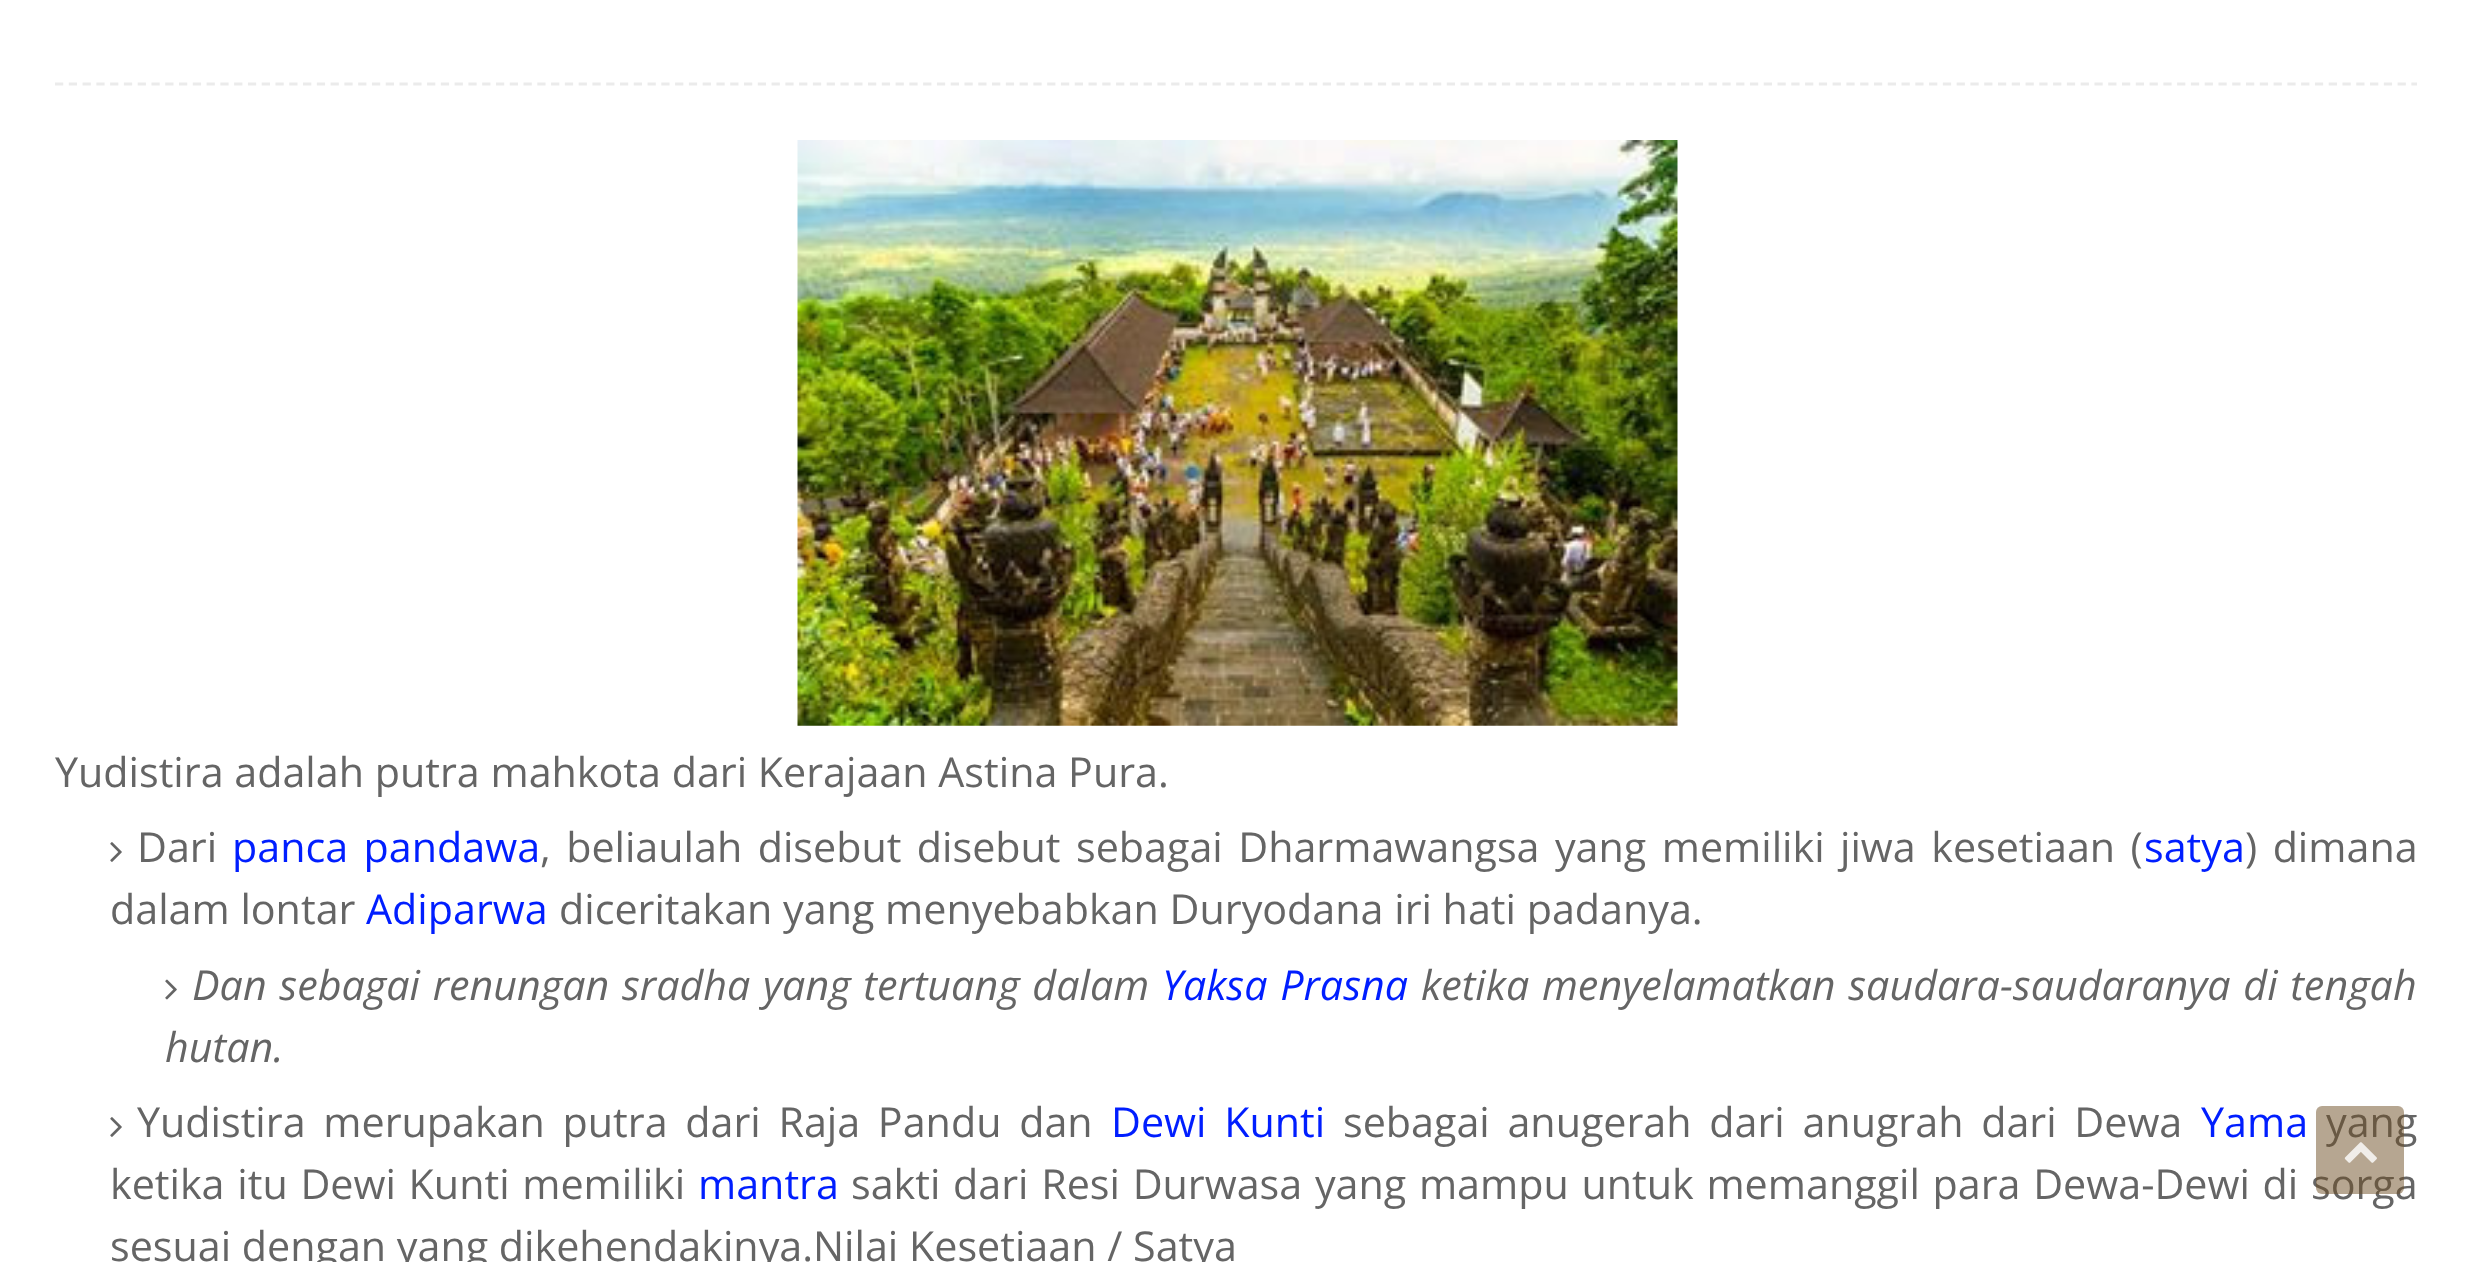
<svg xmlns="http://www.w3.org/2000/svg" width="2471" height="1262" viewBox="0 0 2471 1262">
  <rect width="100%" height="100%" fill="#ffffff"/>
  <path d="M55 84H2417" fill="none" stroke="#ebebeb" stroke-width="2.8" stroke-dasharray="8.25 5.53"/>
  <image x="797" y="140" width="881" height="586" href="img1.png"/>
  <text x="55" y="787" font-family="Open Sans" font-size="41.25" fill="#656565">Yudistira adalah putra mahkota dari Kerajaan Astina Pura.</text>
  <image x="110" y="842" width="12" height="20" href="img2.png"/>
  <text x="137" y="862" font-family="Open Sans" font-size="41.25" fill="#656565">Dari</text>
  <text x="232" y="862" word-spacing="4.75" font-family="Open Sans" font-size="41.25" fill="#001eff">panca pandawa</text>
  <text x="540" y="862" word-spacing="4.75" font-family="Open Sans" font-size="41.25" fill="#656565">, beliaulah disebut disebut sebagai Dharmawangsa yang memiliki jiwa kesetiaan (</text>
  <text x="2144" y="862" font-family="Open Sans" font-size="41.25" fill="#001eff">satya</text>
  <text x="2245" y="862" word-spacing="4.75" font-family="Open Sans" font-size="41.25" fill="#656565">) dimana</text>
  <text x="110" y="924" font-family="Open Sans" font-size="41.25" fill="#656565">dalam lontar</text>
  <text x="366" y="924" font-family="Open Sans" font-size="41.25" fill="#001eff">Adiparwa</text>
  <text x="559" y="924" font-family="Open Sans" font-size="41.25" fill="#656565">diceritakan yang menyebabkan Duryodana iri hati padanya.</text>
  <image x="165" y="979" width="12" height="21" href="img3.png"/>
  <text x="192" y="1000" word-spacing="2" font-family="Open Sans" font-size="41.25" font-style="italic" fill="#656565">Dan sebagai renungan sradha yang tertuang dalam</text>
  <text x="1162" y="1000" word-spacing="2" font-family="Open Sans" font-size="41.25" font-style="italic" fill="#001eff">Yaksa Prasna</text>
  <text x="1421" y="1000" word-spacing="2" font-family="Open Sans" font-size="41.25" font-style="italic" fill="#656565">ketika menyelamatkan saudara-saudaranya di tengah</text>
  <text x="165" y="1062" font-family="Open Sans" font-size="41.25" font-style="italic" fill="#656565">hutan.</text>
  <image x="110" y="1117" width="12" height="20" href="img2.png"/>
  <text x="137" y="1137" word-spacing="7" font-family="Open Sans" font-size="41.25" fill="#656565">Yudistira merupakan putra dari Raja Pandu dan</text>
  <text x="1111" y="1137" word-spacing="7" font-family="Open Sans" font-size="41.25" fill="#001eff">Dewi Kunti</text>
  <text x="1343" y="1137" word-spacing="7" font-family="Open Sans" font-size="41.25" fill="#656565">sebagai anugerah dari anugrah dari Dewa</text>
  <text x="2201" y="1137" font-family="Open Sans" font-size="41.25" fill="#001eff">Yama</text>
  <text x="2326" y="1137" font-family="Open Sans" font-size="41.25" fill="#656565">yang</text>
  <text x="110" y="1199" word-spacing="2" font-family="Open Sans" font-size="41.25" fill="#656565">ketika itu Dewi Kunti memiliki</text>
  <text x="698" y="1199" font-family="Open Sans" font-size="41.25" fill="#001eff">mantra</text>
  <text x="851" y="1199" word-spacing="2" font-family="Open Sans" font-size="41.25" fill="#656565">sakti dari Resi Durwasa yang mampu untuk memanggil para Dewa-Dewi di sorga</text>
  <text x="110" y="1261" font-family="Open Sans" font-size="41.25" fill="#656565">sesuai dengan yang dikehendakinya.Nilai Kesetiaan / Satya</text>
  <rect x="2316" y="1106" width="88" height="88" rx="6" fill="#6d4d23" fill-opacity="0.5"/>
  <image x="2344" y="1142" width="33" height="21" href="img4.png"/>
</svg>
